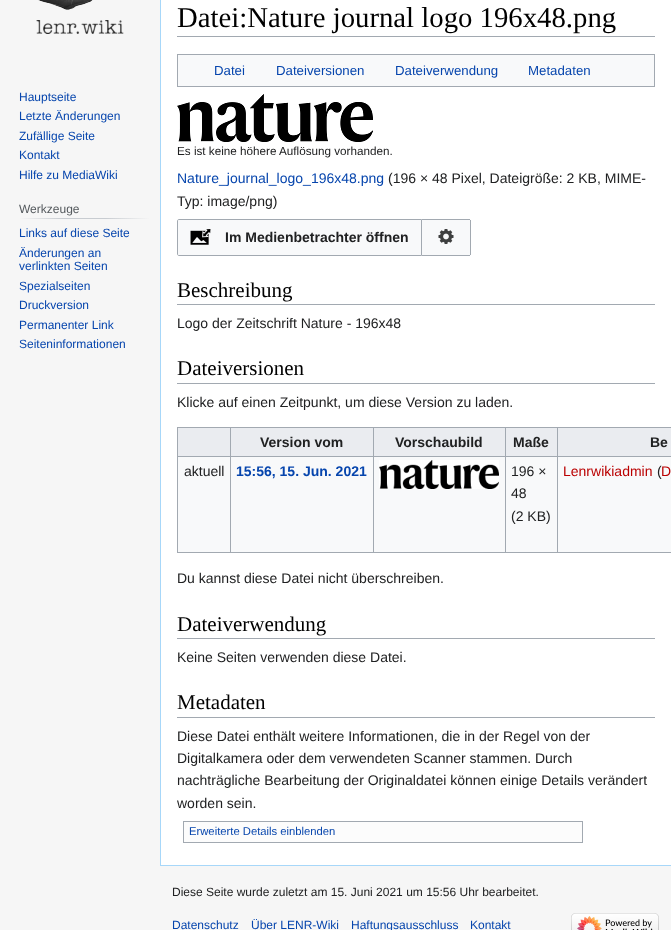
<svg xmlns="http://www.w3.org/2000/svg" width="671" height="930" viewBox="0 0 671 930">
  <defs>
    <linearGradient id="g1" gradientUnits="userSpaceOnUse" x1="19" y1="219" x2="150" y2="219"><stop offset="0" stop-color="#f6f6f6"/><stop offset="0.33" stop-color="#c8ccd1"/><stop offset="0.66" stop-color="#c8ccd1"/><stop offset="1" stop-color="#f6f6f6"/></linearGradient>
  </defs>
  <rect width="100%" height="100%" fill="#f6f6f6"/>
  <image x="36" y="0" width="88" height="34" href="img1.png"/>
  <text x="19" y="101" font-family="Liberation Sans" font-size="12" fill="#0645ad">Hauptseite</text>
  <text x="19" y="120" font-family="Liberation Sans" font-size="12" fill="#0645ad">Letzte Änderungen</text>
  <text x="19" y="140" font-family="Liberation Sans" font-size="12" fill="#0645ad">Zufällige Seite</text>
  <text x="19" y="159" font-family="Liberation Sans" font-size="12" fill="#0645ad">Kontakt</text>
  <text x="19" y="179" font-family="Liberation Sans" font-size="12" fill="#0645ad">Hilfe zu MediaWiki</text>
  <rect x="19" y="218" width="131" height="1" fill="url(#g1)"/>
  <text x="19" y="213" font-family="Liberation Sans" font-size="12" fill="#54595d">Werkzeuge</text>
  <text x="19" y="237" font-family="Liberation Sans" font-size="12" fill="#0645ad">Links auf diese Seite</text>
  <text x="19" y="257" font-family="Liberation Sans" font-size="12" fill="#0645ad">Änderungen an</text>
  <text x="19" y="270" font-family="Liberation Sans" font-size="12" fill="#0645ad">verlinkten Seiten</text>
  <text x="19" y="290" font-family="Liberation Sans" font-size="12" fill="#0645ad">Spezialseiten</text>
  <text x="19" y="309" font-family="Liberation Sans" font-size="12" fill="#0645ad">Druckversion</text>
  <text x="19" y="329" font-family="Liberation Sans" font-size="12" fill="#0645ad">Permanenter Link</text>
  <text x="19" y="348" font-family="Liberation Sans" font-size="12" fill="#0645ad">Seiteninformationen</text>
  <rect x="161" y="0" width="510" height="865" fill="#ffffff"/>
  <rect x="160" y="865" width="511" height="1" fill="#a7d7f9"/>
  <rect x="160" y="0" width="1" height="866" fill="#a7d7f9"/>
  <rect x="177" y="36" width="478" height="1" fill="#a2a9b1"/>
  <text x="177" y="27" font-family="Liberation Serif" font-size="28.75" fill="#000000">Datei:Nature journal logo 196x48.png</text>
  <rect x="177.5" y="54.5" width="477" height="32" fill="#f8f9fa" stroke="#a2a9b1"/>
  <text x="214" y="75" font-family="Liberation Sans" font-size="13.25" fill="#0645ad">Datei</text>
  <text x="276" y="75" font-family="Liberation Sans" font-size="13.25" fill="#0645ad">Dateiversionen</text>
  <text x="395" y="75" font-family="Liberation Sans" font-size="13.25" fill="#0645ad">Dateiverwendung</text>
  <text x="528" y="75" font-family="Liberation Sans" font-size="13.25" fill="#0645ad">Metadaten</text>
  <image x="177" y="94" width="196" height="48" href="img2.png"/>
  <text x="177" y="155" font-family="Liberation Sans" font-size="11.7" fill="#202122">Es ist keine höhere Auflösung vorhanden.</text>
  <text x="177" y="183" font-family="Liberation Sans" font-size="14" fill="#0645ad">Nature_journal_logo_196x48.png</text>
  <text x="388" y="183" font-family="Liberation Sans" font-size="14" fill="#202122">(196 × 48 Pixel, Dateigröße: 2 KB, MIME-</text>
  <text x="177" y="206" font-family="Liberation Sans" font-size="14" fill="#202122">Typ: image/png)</text>
  <path d="M179 219.5H421.5V255.5H179C178 255.5 177.5 255 177.5 254V221C177.5 220 178 219.5 179 219.5Z" fill="#f8f9fa" stroke="#a2a9b1"/>
  <image x="190" y="229" width="21" height="16" href="img3.png"/>
  <text x="225" y="242" font-family="Liberation Sans" font-size="14" font-weight="bold" fill="#202122">Im Medienbetrachter öffnen</text>
  <path d="M422 219H469C470 219 471 220 471 221V254C471 255 470 256 469 256H422Z" fill="#f8f9fa"/>
  <rect x="422" y="219" width="48" height="1" fill="#a2a9b1"/>
  <rect x="470" y="220" width="1" height="35" fill="#a2a9b1"/>
  <rect x="422" y="255" width="48" height="1" fill="#a2a9b1"/>
  <image x="438" y="229" width="16" height="15" href="img4.png"/>
  <rect x="177" y="304" width="478" height="1" fill="#a2a9b1"/>
  <text x="177" y="297" font-family="Liberation Serif" font-size="21" fill="#000000">Beschreibung</text>
  <text x="177" y="328" font-family="Liberation Sans" font-size="14" fill="#202122">Logo der Zeitschrift Nature - 196x48</text>
  <rect x="177" y="383" width="478" height="1" fill="#a2a9b1"/>
  <text x="177" y="375" font-family="Liberation Serif" font-size="21" fill="#000000">Dateiversionen</text>
  <text x="177" y="407" font-family="Liberation Sans" font-size="14" fill="#202122">Klicke auf einen Zeitpunkt, um diese Version zu laden.</text>
  <rect x="178" y="457" width="493" height="95" fill="#f8f9fa"/>
  <rect x="177" y="427" width="494" height="1" fill="#a2a9b1"/>
  <rect x="177" y="552" width="494" height="1" fill="#a2a9b1"/>
  <rect x="177" y="427" width="1" height="126" fill="#a2a9b1"/>
  <rect x="178" y="428" width="52" height="28" fill="#eaecf0"/>
  <rect x="231" y="428" width="142" height="28" fill="#eaecf0"/>
  <rect x="557" y="456" width="114" height="1" fill="#a2a9b1"/>
  <rect x="557" y="456" width="1" height="97" fill="#a2a9b1"/>
  <rect x="505" y="456" width="53" height="1" fill="#a2a9b1"/>
  <rect x="505" y="456" width="1" height="97" fill="#a2a9b1"/>
  <rect x="373" y="456" width="133" height="1" fill="#a2a9b1"/>
  <rect x="373" y="456" width="1" height="97" fill="#a2a9b1"/>
  <rect x="230" y="456" width="144" height="1" fill="#a2a9b1"/>
  <rect x="230" y="456" width="1" height="97" fill="#a2a9b1"/>
  <rect x="177" y="456" width="54" height="1" fill="#a2a9b1"/>
  <rect x="230" y="427" width="1" height="30" fill="#a2a9b1"/>
  <text x="260" y="447" font-family="Liberation Sans" font-size="14" font-weight="bold" fill="#202122">Version vom</text>
  <rect x="374" y="428" width="131" height="28" fill="#eaecf0"/>
  <rect x="373" y="427" width="1" height="30" fill="#a2a9b1"/>
  <text x="395" y="447" font-family="Liberation Sans" font-size="14" font-weight="bold" fill="#202122">Vorschaubild</text>
  <rect x="506" y="428" width="51" height="28" fill="#eaecf0"/>
  <rect x="505" y="427" width="1" height="30" fill="#a2a9b1"/>
  <text x="513" y="447" font-family="Liberation Sans" font-size="14" font-weight="bold" fill="#202122">Maße</text>
  <rect x="558" y="428" width="113" height="28" fill="#eaecf0"/>
  <rect x="557" y="427" width="1" height="30" fill="#a2a9b1"/>
  <text x="650" y="447" font-family="Liberation Sans" font-size="14" font-weight="bold" fill="#202122">Be</text>
  <text x="184" y="476" font-family="Liberation Sans" font-size="14" fill="#202122">aktuell</text>
  <text x="236" y="476" font-family="Liberation Sans" font-size="14" font-weight="bold" fill="#0645ad">15:56, 15. Jun. 2021</text>
  <image x="379" y="460" width="120" height="29" href="img5.png"/>
  <text x="511" y="476" font-family="Liberation Sans" font-size="14" fill="#202122">196 ×</text>
  <text x="511" y="498" font-family="Liberation Sans" font-size="14" fill="#202122">48</text>
  <text x="511" y="521" font-family="Liberation Sans" font-size="14" fill="#202122">(2 KB)</text>
  <text x="563" y="476" font-family="Liberation Sans" font-size="14" fill="#ba0000">Lenrwikiadmin</text>
  <text x="657" y="476" font-family="Liberation Sans" font-size="14" fill="#202122">(</text>
  <text x="661" y="476" font-family="Liberation Sans" font-size="14" fill="#ba0000">D</text>
  <text x="177" y="583" font-family="Liberation Sans" font-size="14" fill="#202122">Du kannst diese Datei nicht überschreiben.</text>
  <rect x="177" y="638" width="478" height="1" fill="#a2a9b1"/>
  <text x="177" y="631" font-family="Liberation Serif" font-size="21" fill="#000000">Dateiverwendung</text>
  <text x="177" y="662" font-family="Liberation Sans" font-size="14" fill="#202122">Keine Seiten verwenden diese Datei.</text>
  <rect x="177" y="717" width="478" height="1" fill="#a2a9b1"/>
  <text x="177" y="709" font-family="Liberation Serif" font-size="21" fill="#000000">Metadaten</text>
  <text x="177" y="741" font-family="Liberation Sans" font-size="14" fill="#202122">Diese Datei enthält weitere Informationen, die in der Regel von der</text>
  <text x="177" y="763" font-family="Liberation Sans" font-size="14" fill="#202122">Digitalkamera oder dem verwendeten Scanner stammen. Durch</text>
  <text x="177" y="785" font-family="Liberation Sans" font-size="14" fill="#202122">nachträgliche Bearbeitung der Originaldatei können einige Details verändert</text>
  <text x="177" y="808" font-family="Liberation Sans" font-size="14" fill="#202122">worden sein.</text>
  <rect x="184" y="822" width="398" height="20" fill="#fcfcfc"/>
  <rect x="183" y="821" width="400" height="1" fill="#a2a9b1"/>
  <rect x="582" y="821" width="1" height="22" fill="#a2a9b1"/>
  <rect x="183" y="842" width="400" height="1" fill="#a2a9b1"/>
  <rect x="183" y="821" width="1" height="22" fill="#a2a9b1"/>
  <text x="189" y="835" font-family="Liberation Sans" font-size="11.25" fill="#0645ad">Erweiterte Details einblenden</text>
  <text x="172" y="896" font-family="Liberation Sans" font-size="12" fill="#202122">Diese Seite wurde zuletzt am 15. Juni 2021 um 15:56 Uhr bearbeitet.</text>
  <text x="172" y="929" font-family="Liberation Sans" font-size="12" fill="#0645ad">Datenschutz</text>
  <text x="251" y="929" font-family="Liberation Sans" font-size="12" fill="#0645ad">Über LENR-Wiki</text>
  <text x="351" y="929" font-family="Liberation Sans" font-size="12" fill="#0645ad">Haftungsausschluss</text>
  <text x="470" y="929" font-family="Liberation Sans" font-size="12" fill="#0645ad">Kontakt</text>
  <image x="571" y="913" width="88" height="17" href="img6.png"/>
</svg>
